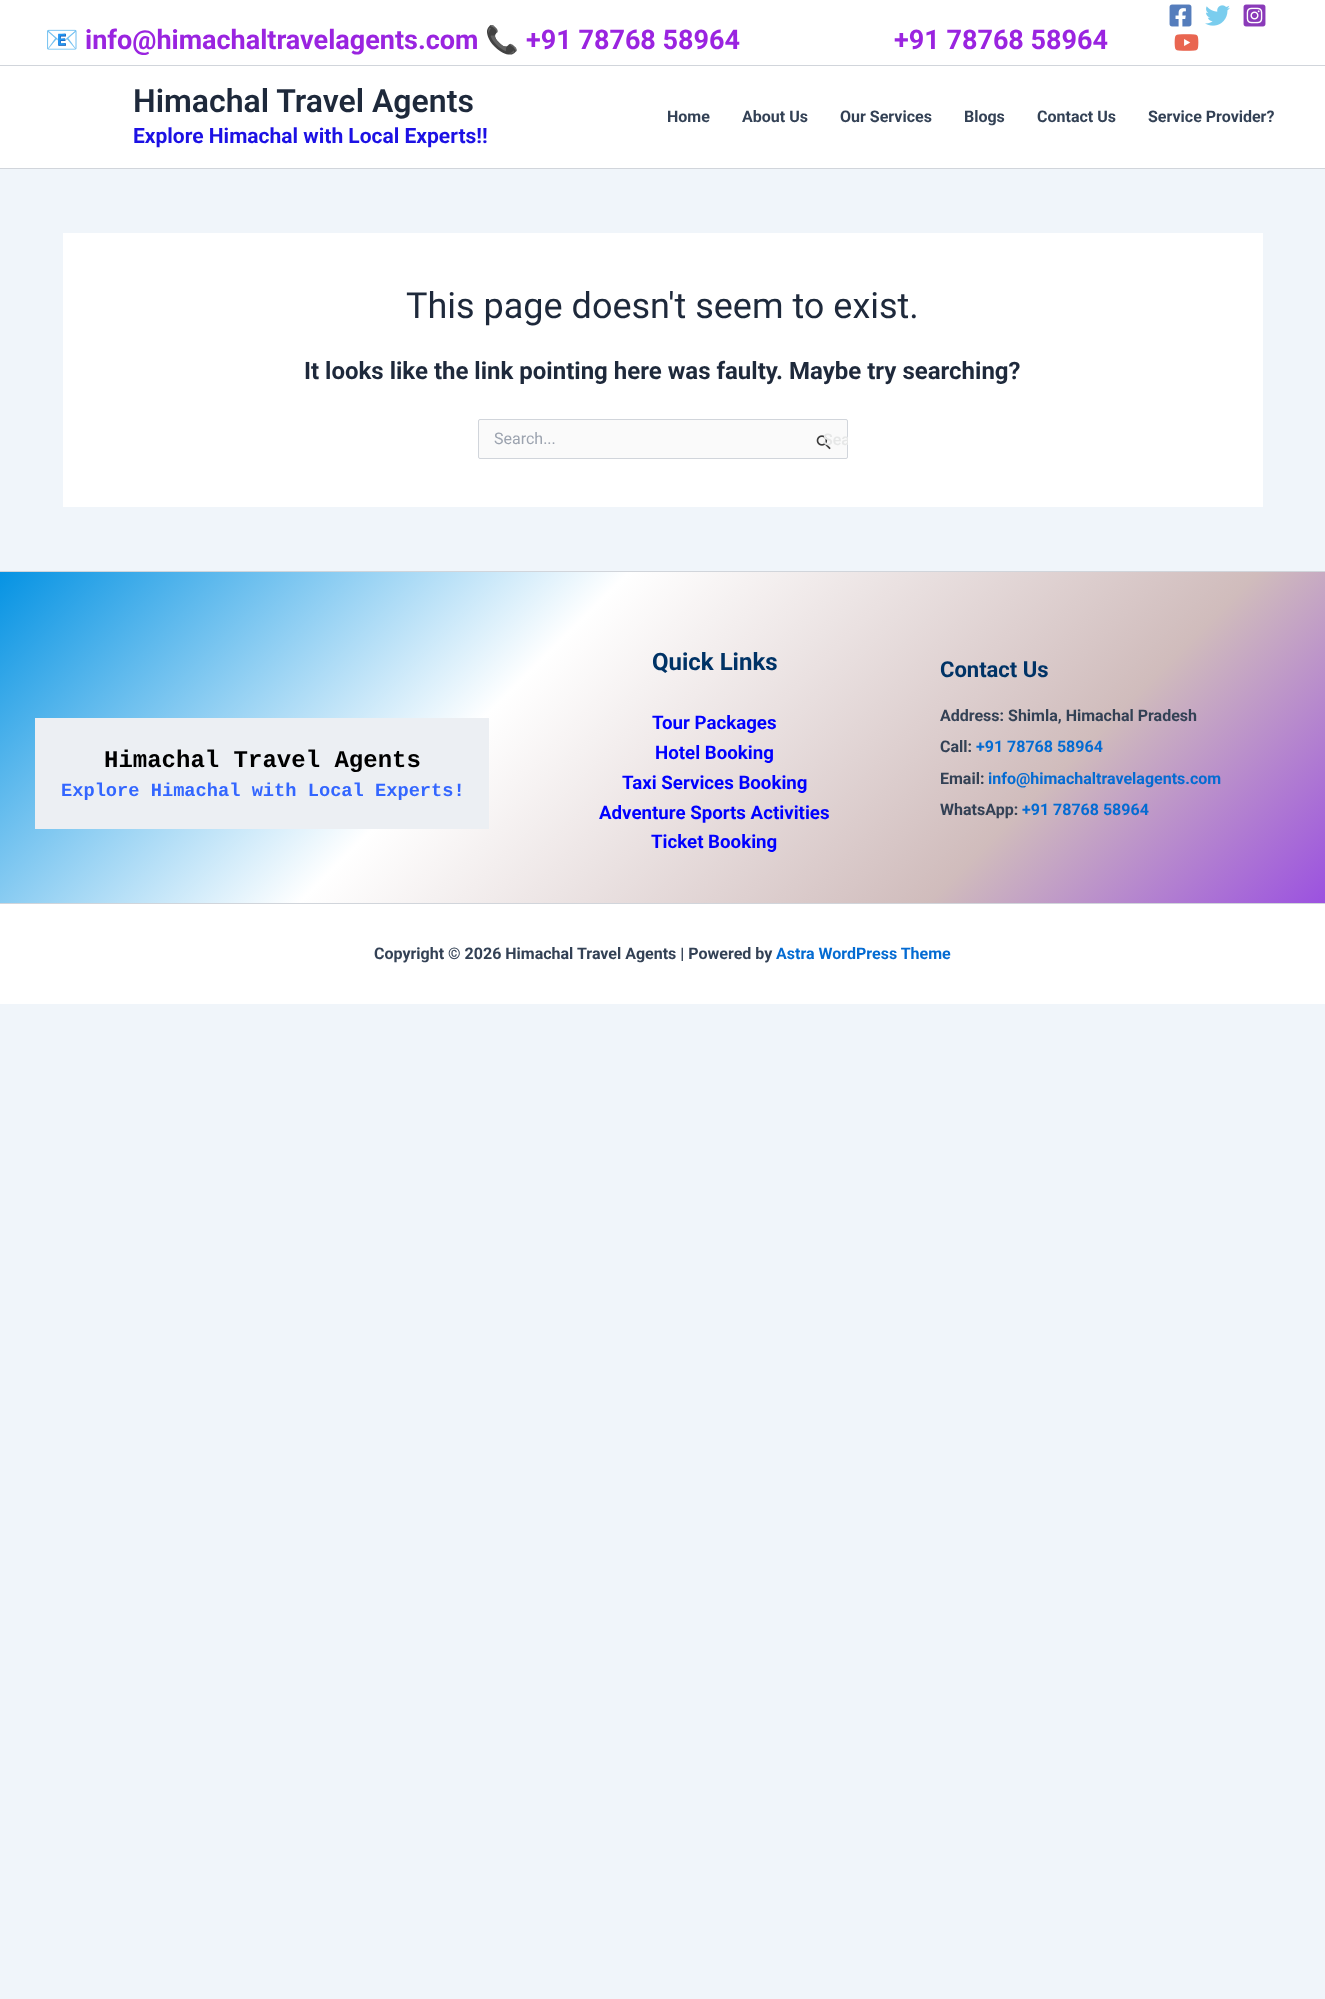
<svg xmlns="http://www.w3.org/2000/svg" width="1325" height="1999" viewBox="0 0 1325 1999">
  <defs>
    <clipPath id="clip1"><rect x="803" y="419" width="45" height="42" rx="2"/></clipPath>
    <linearGradient id="g1" gradientUnits="userSpaceOnUse" x1="248" y1="324" x2="1077" y2="1152"><stop offset="0" stop-color="#0693e3"/><stop offset="0.38" stop-color="#ffffff"/><stop offset="0.76" stop-color="#d0bcbc"/><stop offset="1" stop-color="#9b51e0"/></linearGradient>
  </defs>
  <rect width="100%" height="100%" fill="#f0f5fa"/>
  <rect x="0" y="0" width="1325" height="65" fill="#ffffff"/>
  <rect x="0" y="65" width="1325" height="1" fill="#d1d5db"/>
  <text x="45" y="49" font-family="Noto Color Emoji" font-size="27" fill="#9a24e0">📧</text>
  <text x="85" y="49" font-family="Roboto" font-size="27" font-weight="bold" fill="#9a24e0">info@himachaltravelagents.com</text>
  <text x="485" y="49" font-family="Noto Color Emoji" font-size="27" fill="#9a24e0">📞</text>
  <text x="526" y="49" font-family="Roboto" font-size="27" font-weight="bold" fill="#9a24e0">+91 78768 58964</text>
  <text x="894" y="49" font-family="Roboto" font-size="27" font-weight="bold" fill="#9a24e0">+91 78768 58964</text>
  <image x="1169" y="4" width="23" height="23" href="img1.png"/>
  <image x="1205" y="5" width="25" height="21" href="img2.png"/>
  <image x="1243" y="4" width="23" height="23" href="img3.png"/>
  <image x="1174" y="34" width="25" height="17" href="img4.png"/>
  <rect x="0" y="66" width="1325" height="102" fill="#ffffff"/>
  <rect x="0" y="168" width="1325" height="1" fill="#d1d5db"/>
  <text x="133" y="112" font-family="Roboto" font-size="32" font-weight="600" fill="#1e293b">Himachal Travel Agents</text>
  <text x="133" y="143" font-family="Roboto" font-size="21" font-weight="bold" fill="#1c11e4">Explore Himachal with Local Experts!!</text>
  <text x="667" y="122" font-family="Roboto" font-size="16" font-weight="bold" fill="#334155">Home</text>
  <text x="742" y="122" font-family="Roboto" font-size="16" font-weight="bold" fill="#334155">About Us</text>
  <text x="840" y="122" font-family="Roboto" font-size="16" font-weight="bold" fill="#334155">Our Services</text>
  <text x="964" y="122" font-family="Roboto" font-size="16" font-weight="bold" fill="#334155">Blogs</text>
  <text x="1037" y="122" font-family="Roboto" font-size="16" font-weight="bold" fill="#334155">Contact Us</text>
  <text x="1148" y="122" font-family="Roboto" font-size="16" font-weight="bold" fill="#334155">Service Provider?</text>
  <rect x="63" y="233" width="1200" height="274" fill="#ffffff"/>
  <text x="406" y="318" font-family="Roboto" font-size="36" fill="#1e293b">This page doesn't seem to exist.</text>
  <text x="304" y="379" font-family="Roboto" font-size="24" font-weight="bold" fill="#1e293b">It looks like the link pointing here was faulty. Maybe try searching?</text>
  <rect x="478.5" y="419.5" width="369" height="39" rx="1.5" fill="#fafafa" stroke="#d1d5db"/>
  <text x="494" y="444" font-family="Roboto" font-size="16" fill="#9ca3af">Search...</text>
  <image x="816" y="435" width="15" height="15" href="img5.png"/>
  <g clip-path="url(#clip1)">
    <text x="823" y="445" font-family="Roboto" font-size="16" font-weight="500" fill="#e6e7e7">Sea</text>
  </g>
  <rect x="0" y="572" width="1325" height="331" fill="url(#g1)"/>
  <rect x="0" y="571" width="1325" height="1" fill="#d1d5db"/>
  <rect x="35" y="718" width="454" height="111" fill="#eceff3"/>
  <text x="104" y="767" font-family="Liberation Mono" font-size="24" font-weight="bold" fill="#000000">Himachal Travel Agents</text>
  <text x="61" y="796" font-family="Liberation Mono" font-size="18.7" font-weight="bold" fill="#3366ff">Explore Himachal with Local Experts!</text>
  <text x="652" y="670" font-family="Roboto" font-size="24" font-weight="bold" fill="#003366">Quick Links</text>
  <text x="652" y="729" font-family="Roboto" font-size="18.7" font-weight="bold" fill="#0000ff">Tour Packages</text>
  <text x="655" y="759" font-family="Roboto" font-size="18.7" font-weight="bold" fill="#0000ff">Hotel Booking</text>
  <text x="622" y="789" font-family="Roboto" font-size="18.7" font-weight="bold" fill="#0000ff">Taxi Services Booking</text>
  <text x="599" y="819" font-family="Roboto" font-size="18.7" font-weight="bold" fill="#0000ff">Adventure Sports Activities</text>
  <text x="651" y="848" font-family="Roboto" font-size="18.7" font-weight="bold" fill="#0000ff">Ticket Booking</text>
  <text x="940" y="677" font-family="Roboto" font-size="22" font-weight="bold" fill="#003366">Contact Us</text>
  <text x="940" y="721" font-family="Roboto" font-size="16" font-weight="bold" fill="#334155">Address: Shimla, Himachal Pradesh</text>
  <text x="940" y="752" font-family="Roboto" font-size="16" font-weight="bold" fill="#334155">Call:</text>
  <text x="976" y="752" font-family="Roboto" font-size="16" font-weight="bold" fill="#046bd2">+91 78768 58964</text>
  <text x="940" y="784" font-family="Roboto" font-size="16" font-weight="bold" fill="#334155">Email:</text>
  <text x="988" y="784" font-family="Roboto" font-size="16" font-weight="bold" fill="#046bd2">info@himachaltravelagents.com</text>
  <text x="940" y="815" font-family="Roboto" font-size="16" font-weight="bold" fill="#334155">WhatsApp:</text>
  <text x="1022" y="815" font-family="Roboto" font-size="16" font-weight="bold" fill="#046bd2">+91 78768 58964</text>
  <rect x="0" y="904" width="1325" height="100" fill="#ffffff"/>
  <rect x="0" y="903" width="1325" height="1" fill="#d1d5db"/>
  <text x="374" y="959" font-family="Roboto" font-size="16" font-weight="bold" fill="#334155">Copyright © 2026 Himachal Travel Agents | Powered by</text>
  <text x="776" y="959" font-family="Roboto" font-size="16" font-weight="bold" fill="#046bd2">Astra WordPress Theme</text>
</svg>
